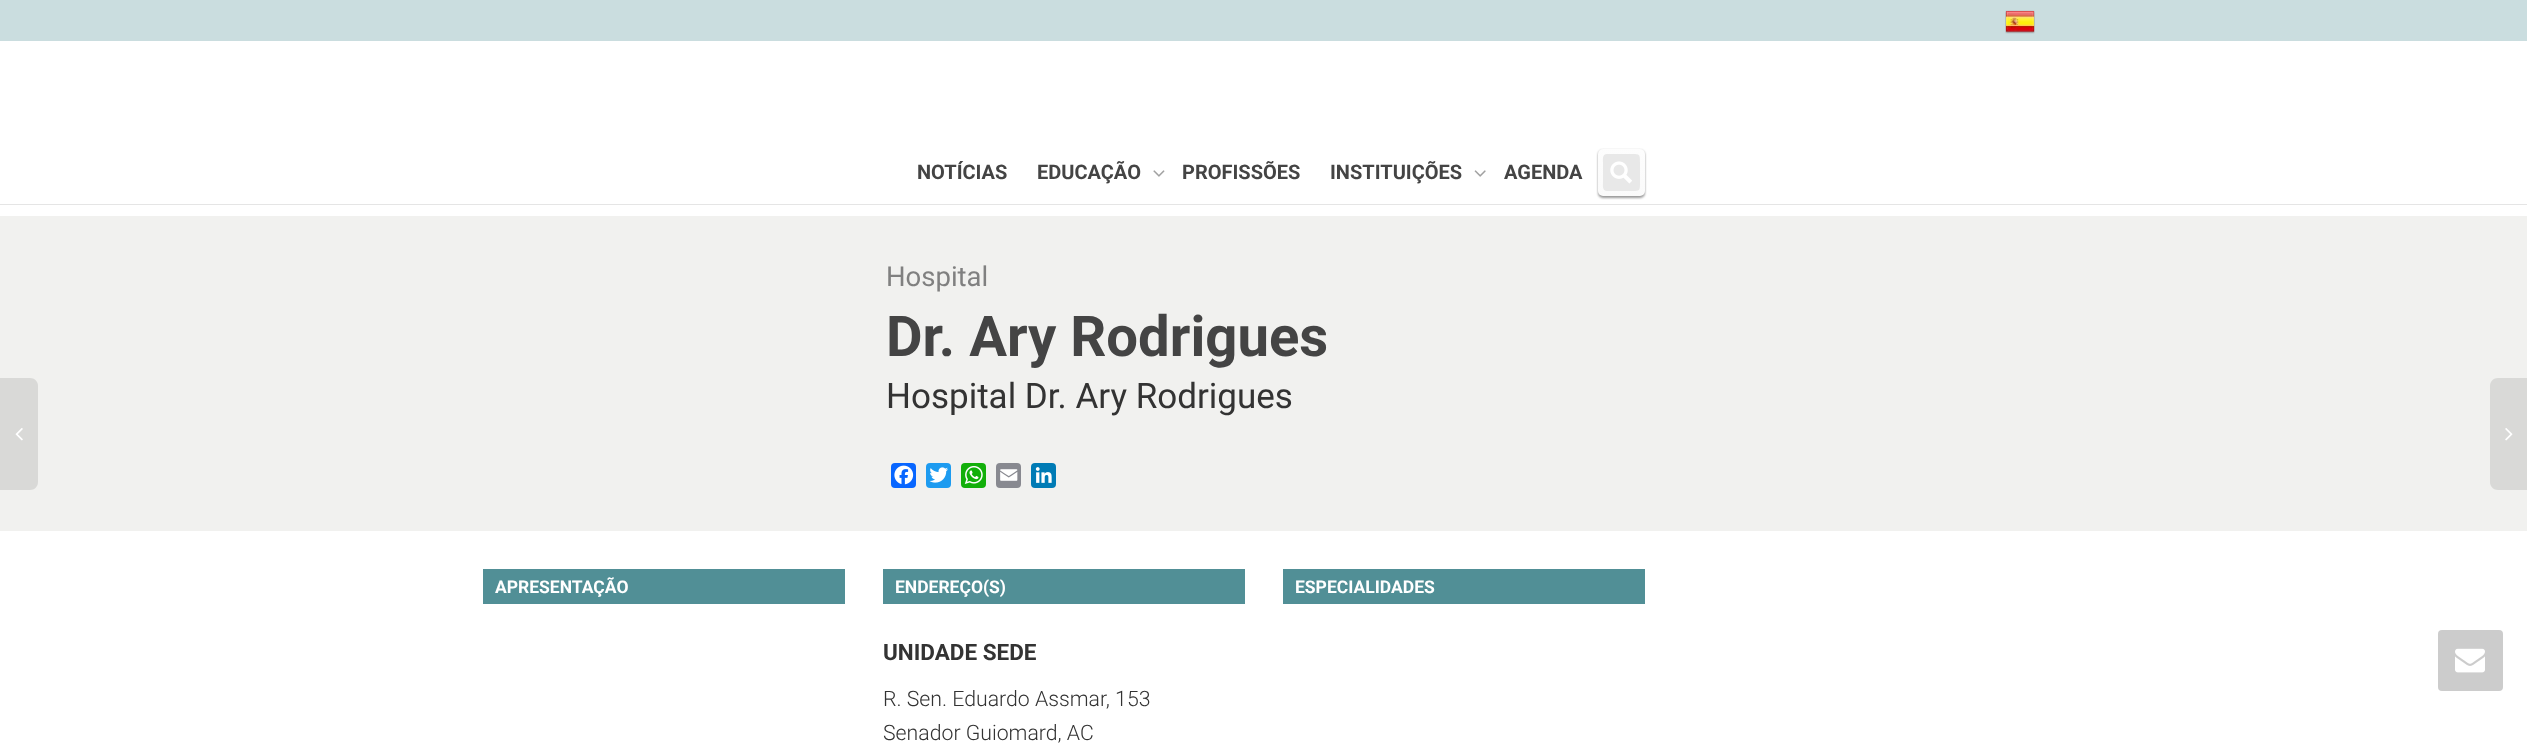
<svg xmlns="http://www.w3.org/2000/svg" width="2527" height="753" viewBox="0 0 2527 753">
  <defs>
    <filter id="blur1" x="-50%" y="-200%" width="200%" height="500%"><feGaussianBlur stdDeviation="1"/></filter>
    <linearGradient id="g1" gradientUnits="userSpaceOnUse" x1="1623" y1="147" x2="1619" y2="198"><stop offset="0" stop-color="#fdfdfd"/><stop offset="1" stop-color="#fafafa"/></linearGradient>
  </defs>
  <rect width="100%" height="100%" fill="#ffffff"/>
  <rect x="0" y="0" width="2527" height="41" fill="#cadddf"/>
  <image x="2005" y="10" width="30" height="24" href="img1.png"/>
  <rect x="0" y="204" width="2527" height="1" fill="#e5e5e5"/>
  <text x="917" y="179" font-family="Roboto" font-size="20" font-weight="bold" fill="#444444">NOTÍCIAS</text>
  <text x="1037" y="179" font-family="Roboto" font-size="20" font-weight="bold" fill="#444444">EDUCAÇÃO</text>
  <image x="1153" y="170" width="12" height="7" href="img2.png"/>
  <text x="1182" y="179" font-family="Roboto" font-size="20" font-weight="bold" fill="#444444">PROFISSÕES</text>
  <text x="1330" y="179" font-family="Roboto" font-size="20" font-weight="bold" fill="#444444">INSTITUIÇÕES</text>
  <image x="1474" y="170" width="12" height="7" href="img3.png"/>
  <text x="1504" y="179" font-family="Roboto" font-size="20" font-weight="bold" fill="#444444">AGENDA</text>
  <rect x="1598" y="150" width="47" height="48" rx="5" fill="#999999" filter="url(#blur1)"/>
  <rect x="1598" y="149" width="47" height="47" rx="5" fill="url(#g1)"/>
  <path d="M1607 154H1631C1640 154 1640 154 1640 163V182C1640 191 1640 191 1631 191H1607C1602 191 1603 185.5 1603 182V163C1603 159.5 1602 154 1607 154Z" fill="#e8e8e8"/>
  <image x="1610" y="161" width="22" height="23" href="img4.png"/>
  <rect x="0" y="216" width="2527" height="315" fill="#f1f1ef"/>
  <text x="886" y="286" font-family="Roboto" font-size="27.5" fill="#808080">Hospital</text>
  <text x="886" y="356" font-family="Roboto" font-size="56.25" font-weight="bold" fill="#444444">Dr. Ary Rodrigues</text>
  <text x="886" y="408" font-family="Roboto" font-size="35" fill="#333333">Hospital Dr. Ary Rodrigues</text>
  <rect x="891" y="463" width="25" height="25" rx="4" fill="#0866ff"/>
  <image x="894" y="465" width="20" height="20" href="img5.png"/>
  <rect x="926" y="463" width="25" height="25" rx="4" fill="#1d9bf0"/>
  <image x="929" y="467" width="19" height="16" href="img6.png"/>
  <rect x="961" y="463" width="25" height="25" rx="4" fill="#12af0a"/>
  <image x="964" y="466" width="19" height="18" href="img7.png"/>
  <rect x="996" y="463" width="25" height="25" rx="4" fill="#888990"/>
  <image x="1000" y="469" width="18" height="12" href="img8.png"/>
  <rect x="1031" y="463" width="25" height="25" rx="4" fill="#007bb5"/>
  <image x="1035" y="467" width="17" height="16" href="img9.png"/>
  <rect x="483" y="569" width="362" height="35" fill="#518f96"/>
  <text x="495" y="593" font-family="Roboto" font-size="17.5" font-weight="bold" fill="#ffffff">APRESENTAÇÃO</text>
  <rect x="883" y="569" width="362" height="35" fill="#518f96"/>
  <text x="895" y="593" font-family="Roboto" font-size="17.5" font-weight="bold" fill="#ffffff">ENDEREÇO(S)</text>
  <text x="883" y="660" font-family="Roboto" font-size="22.5" font-weight="bold" fill="#333333">UNIDADE SEDE</text>
  <text x="883" y="706" font-family="Roboto" font-size="21.25" font-weight="300" fill="#333333">R. Sen. Eduardo Assmar, 153</text>
  <text x="883" y="740" font-family="Roboto" font-size="21.25" font-weight="300" fill="#333333">Senador Guiomard, AC</text>
  <rect x="1283" y="569" width="362" height="35" fill="#518f96"/>
  <text x="1295" y="593" font-family="Roboto" font-size="17.5" font-weight="bold" fill="#ffffff">ESPECIALIDADES</text>
  <path d="M-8 378H30C34.5 378 38 381.5 38 386V482C38 486.5 34.5 490 30 490H-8Z" fill="#d9d9d7"/>
  <image x="15" y="428" width="8" height="13" href="img10.png"/>
  <path d="M2498 378H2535V490H2498C2493.5 490 2490 486.5 2490 482V386C2490 381.5 2493.5 378 2498 378Z" fill="#d9d9d7"/>
  <image x="2505" y="428" width="8" height="13" href="img11.png"/>
  <rect x="2438" y="630" width="65" height="61" rx="4" fill="#cccccc"/>
  <image x="2455" y="648" width="30" height="25" href="img12.png"/>
</svg>
